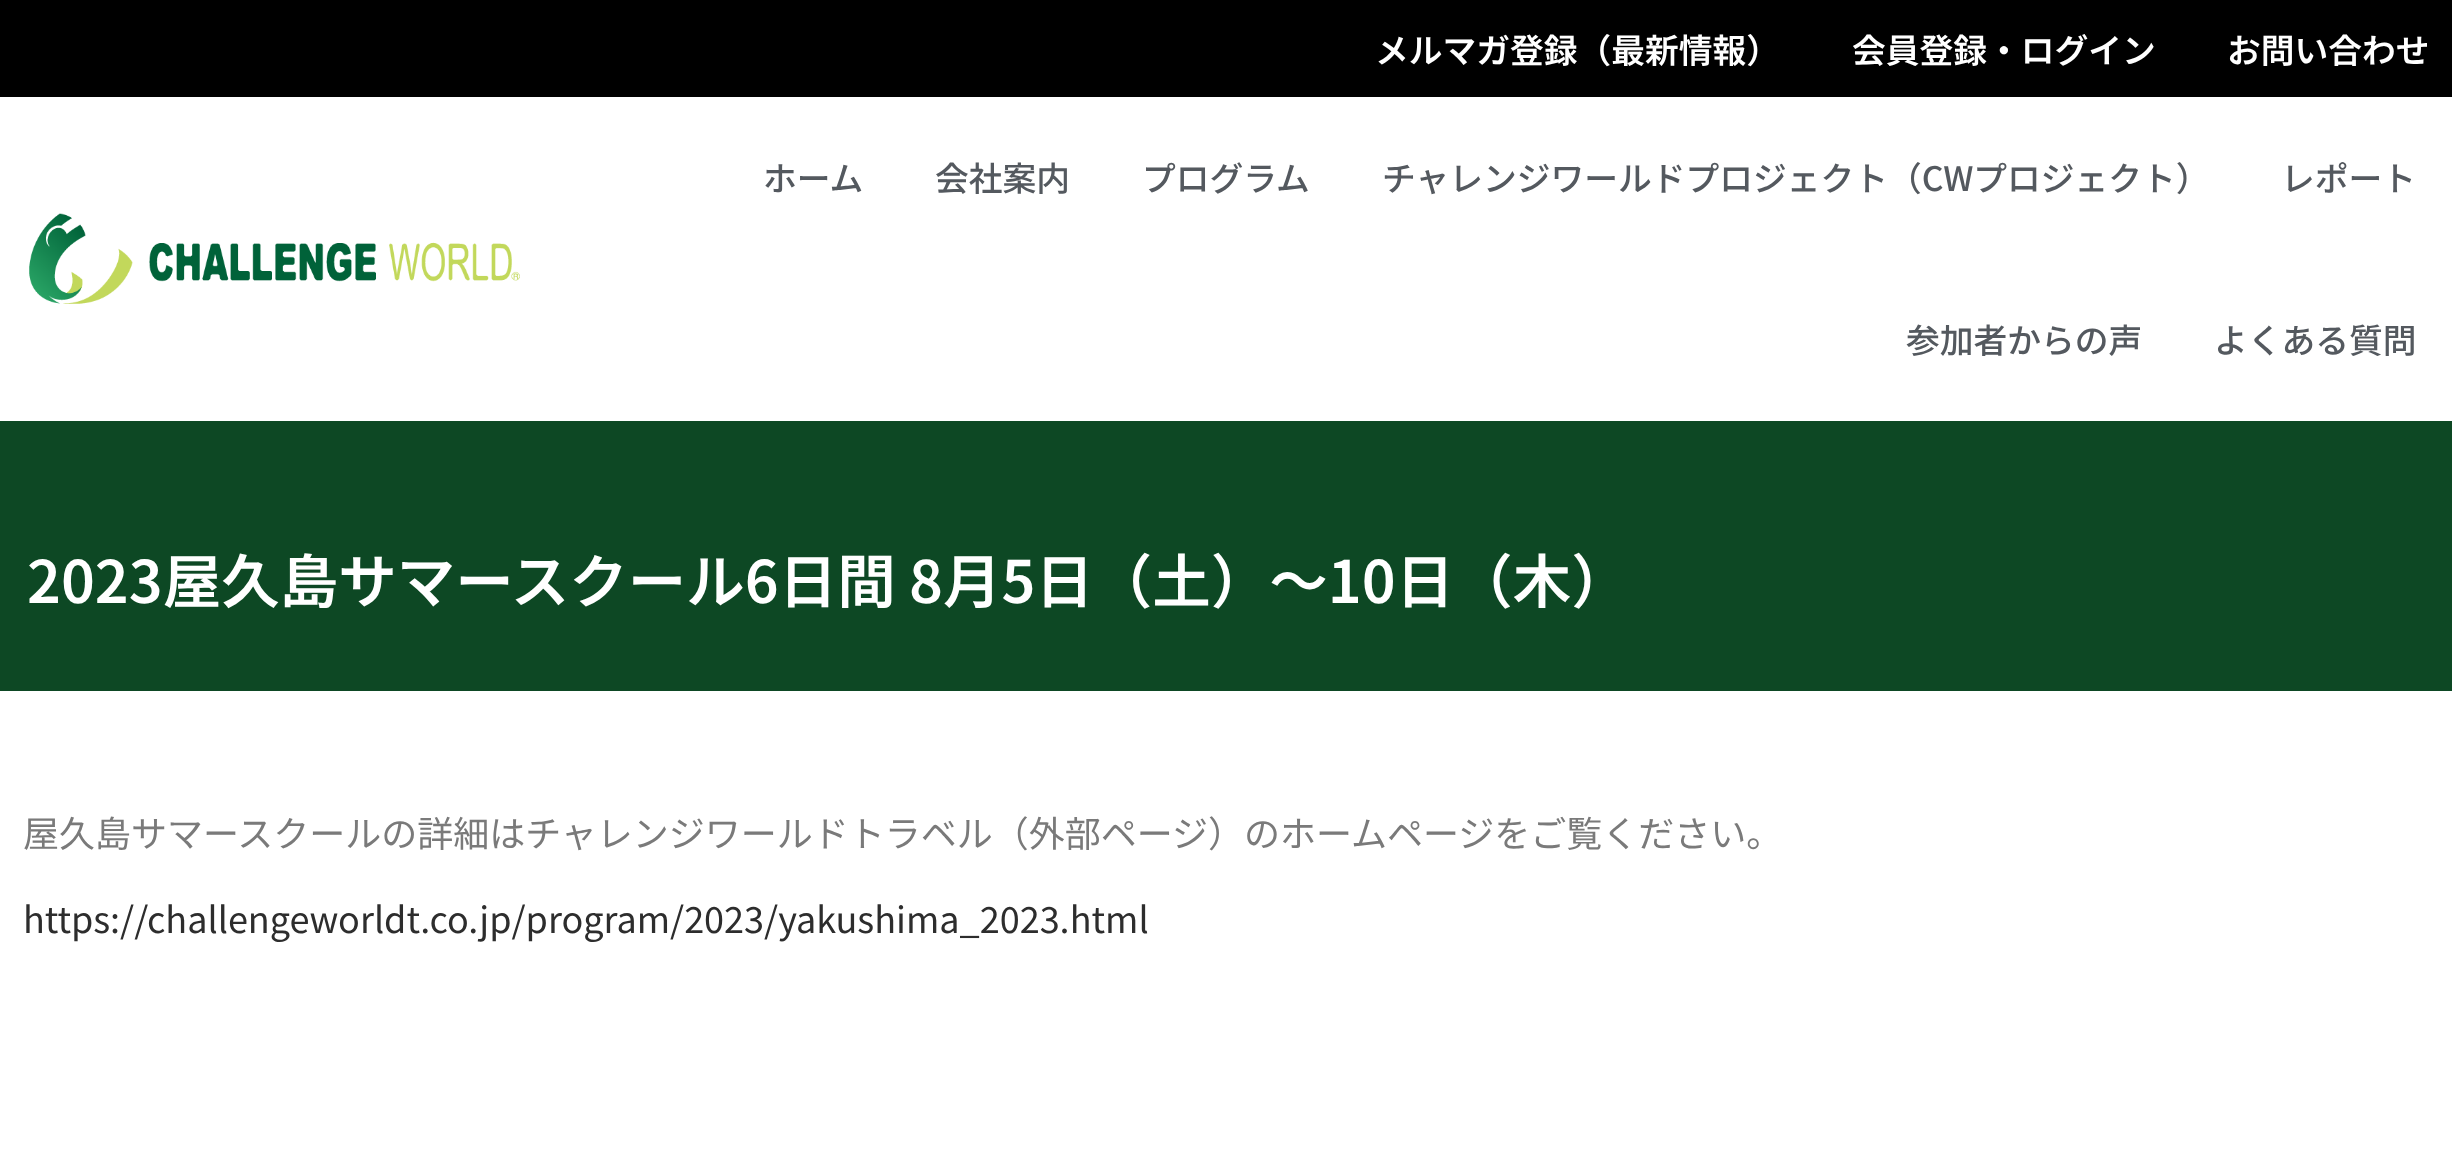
<svg xmlns="http://www.w3.org/2000/svg" width="2452" height="1152" viewBox="0 0 2452 1152">
  <defs>
    <clipPath id="clip1"><rect x="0" y="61" width="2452" height="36"/></clipPath>
    <filter id="blur1" x="-50%" y="-200%" width="200%" height="500%"><feGaussianBlur stdDeviation="43"/></filter>
  </defs>
  <rect width="100%" height="100%" fill="#ffffff"/>
  <rect x="0" y="0" width="2452" height="97" fill="#000000"/>
  <g clip-path="url(#clip1)">
    <rect x="0" y="97" width="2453" height="324" fill="#000000" fill-opacity="0.1" filter="url(#blur1)"/>
  </g>
  <text x="1375" y="63" font-family="Noto Sans JP" font-size="33.75" font-weight="600" fill="#ffffff">メルマガ登録（最新情報）</text>
  <text x="1852" y="63" font-family="Noto Sans JP" font-size="33.75" font-weight="600" fill="#ffffff">会員登録・ログイン</text>
  <text x="2227" y="63" font-family="Noto Sans JP" font-size="33.75" font-weight="600" fill="#ffffff">お問い合わせ</text>
  <image x="29" y="213" width="491" height="91" href="img1.png"/>
  <text x="763" y="191" font-family="Noto Sans JP" font-size="33.75" font-weight="500" fill="#54595f">ホーム</text>
  <text x="935" y="191" font-family="Noto Sans JP" font-size="33.75" font-weight="500" fill="#54595f">会社案内</text>
  <text x="1142" y="191" font-family="Noto Sans JP" font-size="33.75" font-weight="500" fill="#54595f">プログラム</text>
  <text x="1382" y="191" font-family="Noto Sans JP" font-size="33.75" font-weight="500" fill="#54595f">チャレンジワールドプロジェクト（CWプロジェクト）</text>
  <text x="2281" y="191" font-family="Noto Sans JP" font-size="33.75" font-weight="500" fill="#54595f">レポート</text>
  <text x="1906" y="353" font-family="Noto Sans JP" font-size="33.75" font-weight="500" fill="#54595f">参加者からの声</text>
  <text x="2214" y="353" font-family="Noto Sans JP" font-size="33.75" font-weight="500" fill="#54595f">よくある質問</text>
  <rect x="0" y="421" width="2452" height="270" fill="#0d4824"/>
  <text x="27" y="603" font-family="Noto Sans JP" font-size="58.5" font-weight="600" fill="#ffffff">2023屋久島サマースクール6日間 8月5日（土）〜10日（木）</text>
  <text x="23" y="847" font-family="Noto Sans JP" font-size="36" fill="#7a7a7a">屋久島サマースクールの詳細はチャレンジワールドトラベル（外部ページ）のホームページをご覧ください。</text>
  <text x="23" y="933" font-family="Noto Sans JP" font-size="36" fill="#2d2d2d">https://challengeworldt.co.jp/program/2023/yakushima_2023.html</text>
</svg>
